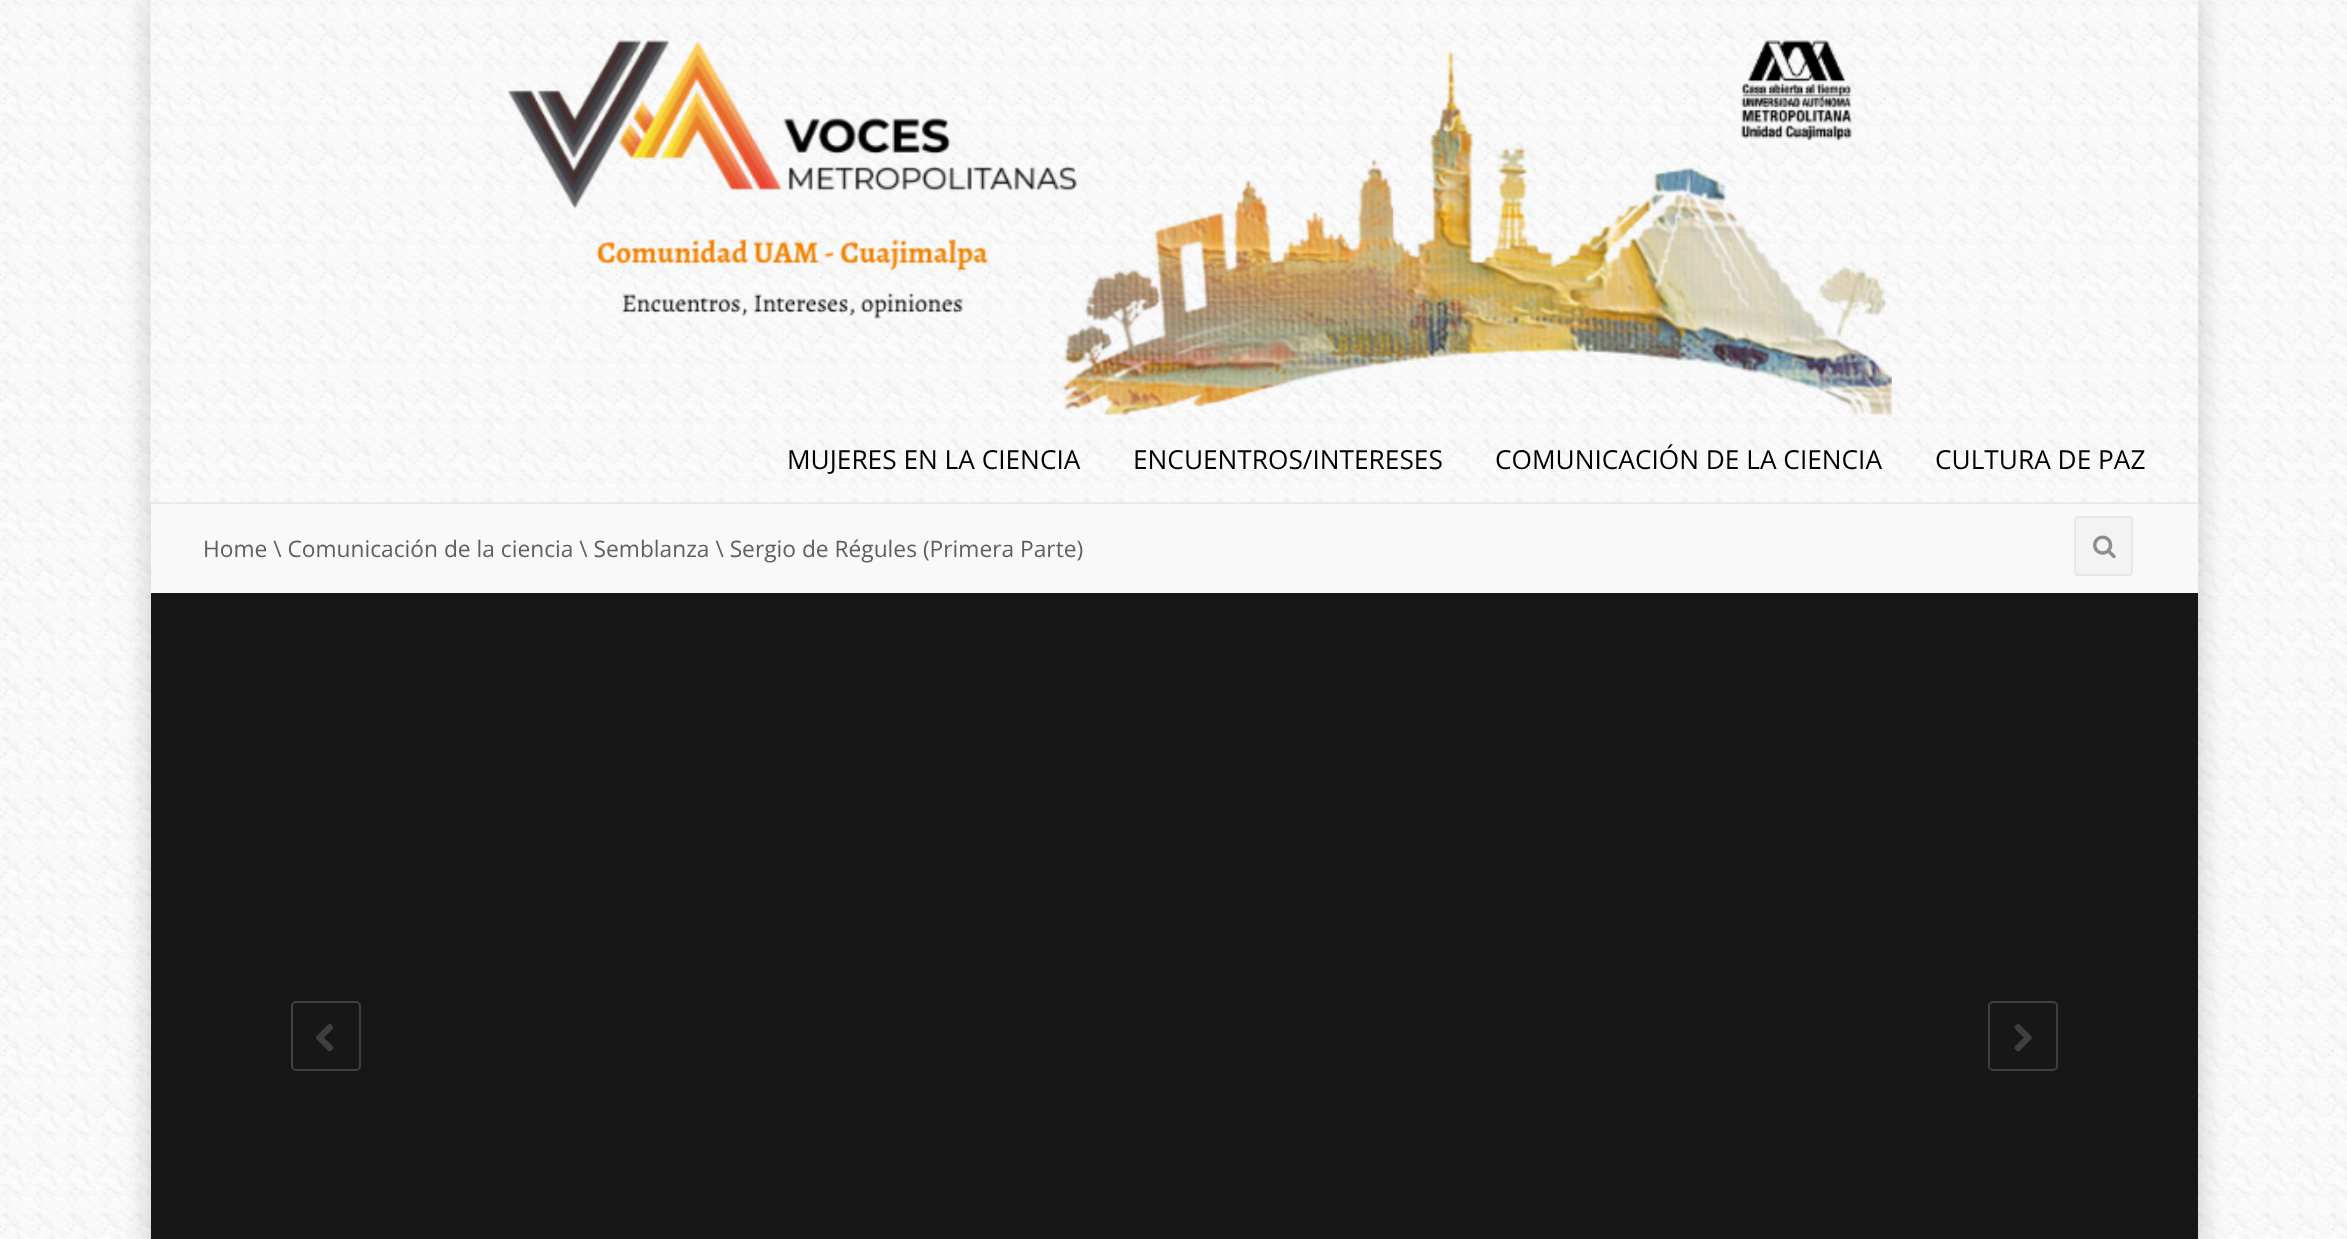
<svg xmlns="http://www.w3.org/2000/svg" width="2347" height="1239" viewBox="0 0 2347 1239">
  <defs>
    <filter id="blur1" x="-50%" y="-200%" width="200%" height="500%"><feGaussianBlur stdDeviation="13"/></filter>
  </defs>
  <rect width="100%" height="100%" fill="#ffffff"/>
  <image x="0" y="0" width="2347" height="1239" href="img1.png"/>
  <rect x="147" y="-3" width="2055" height="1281" fill="#000000" fill-opacity="0.15" filter="url(#blur1)"/>
  <rect x="151" y="502" width="2047" height="2" fill="#e7e7e7"/>
  <image x="150" y="0" width="2048" height="503" href="img2.png"/>
  <image x="507" y="40" width="1385" height="375" href="img3.png"/>
  <text x="787" y="469" font-family="Open Sans" font-size="26.25" fill="#000000">MUJERES EN LA CIENCIA</text>
  <text x="1133" y="469" font-family="Open Sans" font-size="26.25" fill="#000000">ENCUENTROS/INTERESES</text>
  <text x="1495" y="469" font-family="Open Sans" font-size="26.25" fill="#000000">COMUNICACIÓN DE LA CIENCIA</text>
  <text x="1935" y="469" font-family="Open Sans" font-size="26.25" fill="#000000">CULTURA DE PAZ</text>
  <rect x="151" y="504" width="2047" height="89" fill="#f9f9f9"/>
  <text x="203" y="557" font-family="Open Sans" font-size="22.75" fill="#5f5f5f">Home \ Comunicación de la ciencia \ Semblanza \ Sergio de Régules (Primera Parte)</text>
  <rect x="2075" y="517" width="57" height="58" rx="3" fill="#f3f3f3" stroke="#e7e7e7" stroke-width="2"/>
  <image x="2093" y="535" width="23" height="24" href="img4.png"/>
  <rect x="151" y="593" width="2047" height="646" fill="#171717"/>
  <rect x="292" y="1002" width="68" height="68" rx="4" fill="none" stroke="#3f3f3f" stroke-width="2"/>
  <image x="316" y="1024" width="18" height="28" href="img5.png"/>
  <rect x="1989" y="1002" width="68" height="68" rx="4" fill="none" stroke="#3f3f3f" stroke-width="2"/>
  <image x="2014" y="1024" width="18" height="28" href="img6.png"/>
</svg>
